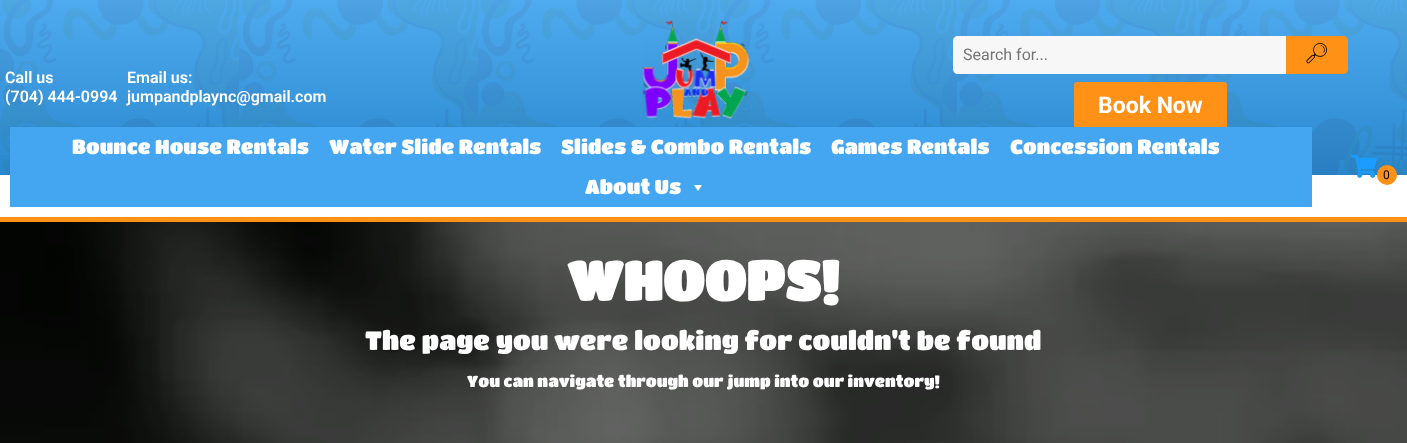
<svg xmlns="http://www.w3.org/2000/svg" width="1407" height="443" viewBox="0 0 1407 443">
  <rect width="100%" height="100%" fill="#ffffff"/>
  <image x="0" y="0" width="1407" height="175" href="img1.png"/>
  <text x="5" y="83" font-family="Roboto" font-size="16" font-weight="600" fill="#ffffff">Call us</text>
  <text x="5" y="102" font-family="Roboto" font-size="16" font-weight="600" fill="#ffffff">(704) 444-0994</text>
  <text x="127" y="83" font-family="Roboto" font-size="16" font-weight="600" fill="#ffffff">Email us:</text>
  <text x="127" y="102" font-family="Roboto" font-size="16" font-weight="600" fill="#ffffff">jumpandplaync@gmail.com</text>
  <image x="642" y="20" width="108" height="99" href="img2.png"/>
  <path d="M958 36H1287V74H958C955 74 953 72 953 69V41C953 38 955 36 958 36Z" fill="#f7f7f7"/>
  <text x="963" y="60" font-family="Roboto" font-size="16" fill="#757575">Search for...</text>
  <path d="M1286 36H1343C1346 36 1348 38 1348 41V69C1348 72 1346 74 1343 74H1286Z" fill="#ff9117"/>
  <text x="1304" y="60" font-family="Noto Emoji" font-size="20" fill="#000000">🔎︎</text>
  <rect x="1074" y="82" width="153" height="47" rx="3" fill="#ff9117"/>
  <text x="1098" y="113" font-family="Roboto" font-size="23" font-weight="bold" fill="#ffffff">Book Now</text>
  <rect x="0" y="217" width="1407" height="5" fill="#ff9117"/>
  <rect x="10" y="127" width="1302" height="80" fill="#44a6f0"/>
  <text x="72" y="154" font-family="Titan One" font-size="20" fill="#ffffff">Bounce House Rentals</text>
  <text x="329" y="154" font-family="Titan One" font-size="20" fill="#ffffff">Water Slide Rentals</text>
  <text x="561" y="154" font-family="Titan One" font-size="20" fill="#ffffff">Slides &amp; Combo Rentals</text>
  <text x="831" y="154" font-family="Titan One" font-size="20" fill="#ffffff">Games Rentals</text>
  <text x="1010" y="154" font-family="Titan One" font-size="20" fill="#ffffff">Concession Rentals</text>
  <text x="585" y="194" font-family="Titan One" font-size="20" fill="#ffffff">About Us</text>
  <path d="M702 185L698 191L694 185Z" fill="#ffffff"/>
  <image x="1351" y="154" width="26" height="24" href="img3.png"/>
  <circle cx="1387" cy="175" r="10" fill="#ff9117"/>
  <text x="1383" y="179" font-family="Roboto" font-size="12" fill="#000000">0</text>
  <image x="0" y="222" width="1407" height="221" href="img4.png"/>
  <text x="567" y="301" font-family="Titan One" font-size="55" font-weight="bold" fill="#ffffff">WHOOPS!</text>
  <text x="365" y="350" font-family="Titan One" font-size="26" fill="#ffffff">The page you were looking for couldn't be found</text>
  <text x="467" y="387" font-family="Titan One" font-size="16" fill="#ffffff">You can navigate through our jump into our inventory!</text>
</svg>
